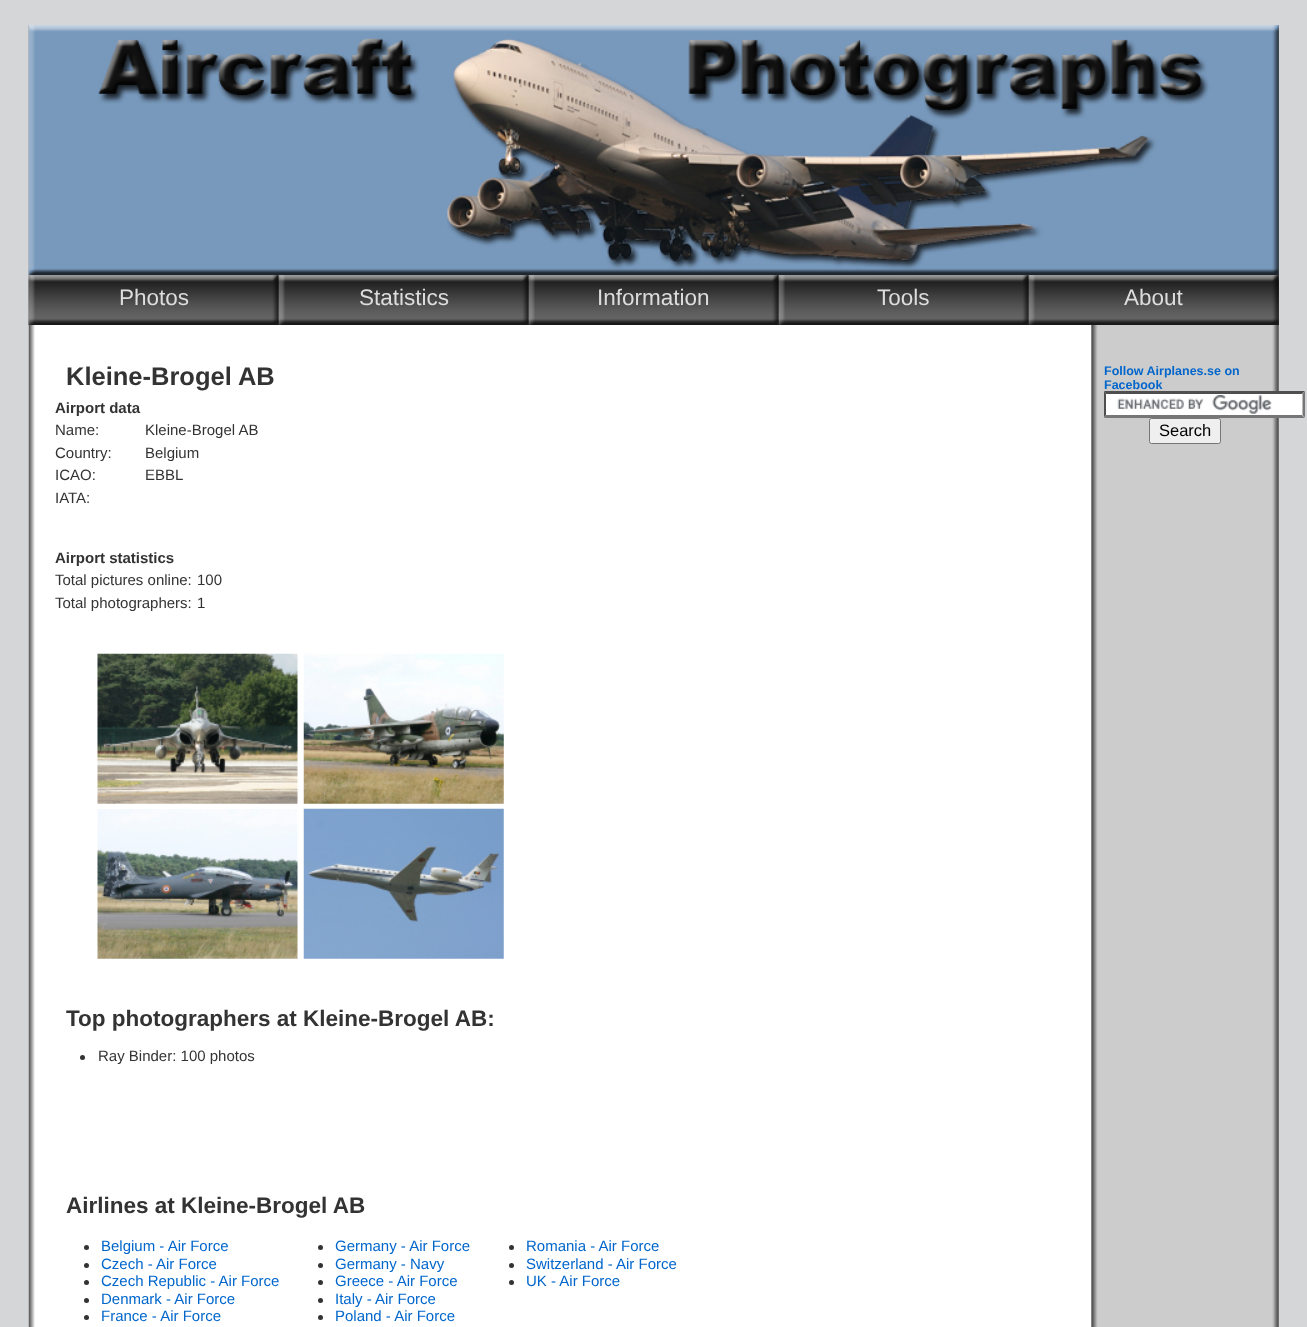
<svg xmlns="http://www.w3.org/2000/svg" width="1307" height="1327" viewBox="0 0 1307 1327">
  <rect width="100%" height="100%" fill="#d5d6d7"/>
  <image x="28" y="25" width="1251" height="1302" href="img1.png"/>
  <image x="28" y="25" width="1251" height="250" href="img2.png"/>
  <image x="28" y="275" width="1251" height="50" href="img3.png"/>
  <image x="28" y="275" width="7" height="50" href="img4.png"/>
  <text x="119" y="305" font-family="Liberation Sans" font-size="22.5" fill="#dddddd">Photos</text>
  <image x="272" y="275" width="7" height="48" href="img5.png"/>
  <image x="278" y="275" width="7" height="50" href="img6.png"/>
  <text x="359" y="305" font-family="Liberation Sans" font-size="22.5" fill="#dddddd">Statistics</text>
  <image x="522" y="275" width="7" height="48" href="img5.png"/>
  <image x="528" y="275" width="7" height="50" href="img7.png"/>
  <text x="597" y="305" font-family="Liberation Sans" font-size="22.5" fill="#dddddd">Information</text>
  <image x="772" y="275" width="7" height="48" href="img5.png"/>
  <image x="778" y="275" width="7" height="50" href="img6.png"/>
  <text x="877" y="305" font-family="Liberation Sans" font-size="22.5" fill="#dddddd">Tools</text>
  <image x="1022" y="275" width="7" height="48" href="img5.png"/>
  <image x="1028" y="275" width="7" height="50" href="img7.png"/>
  <text x="1124" y="305" font-family="Liberation Sans" font-size="22.5" fill="#dddddd">About</text>
  <image x="1272" y="275" width="7" height="50" href="img8.png"/>
  <text x="66" y="385" font-family="Liberation Sans" font-size="25.5" font-weight="bold" fill="#333333">Kleine-Brogel AB</text>
  <text x="55" y="413" font-family="Liberation Sans" font-size="15" font-weight="bold" fill="#333333">Airport data</text>
  <text x="55" y="435" font-family="Liberation Sans" font-size="15" fill="#333333">Name:</text>
  <text x="145" y="435" font-family="Liberation Sans" font-size="15" fill="#333333">Kleine-Brogel AB</text>
  <text x="55" y="458" font-family="Liberation Sans" font-size="15" fill="#333333">Country:</text>
  <text x="145" y="458" font-family="Liberation Sans" font-size="15" fill="#333333">Belgium</text>
  <text x="55" y="480" font-family="Liberation Sans" font-size="15" fill="#333333">ICAO:</text>
  <text x="145" y="480" font-family="Liberation Sans" font-size="15" fill="#333333">EBBL</text>
  <text x="55" y="503" font-family="Liberation Sans" font-size="15" fill="#333333">IATA:</text>
  <text x="55" y="563" font-family="Liberation Sans" font-size="15" font-weight="bold" fill="#333333">Airport statistics</text>
  <text x="55" y="585" font-family="Liberation Sans" font-size="15" fill="#333333">Total pictures online:</text>
  <text x="197" y="585" font-family="Liberation Sans" font-size="15" fill="#333333">100</text>
  <text x="55" y="608" font-family="Liberation Sans" font-size="15" fill="#333333">Total photographers:</text>
  <text x="197" y="608" font-family="Liberation Sans" font-size="15" fill="#333333">1</text>
  <image x="97" y="653" width="201" height="151" href="img9.png"/>
  <image x="303" y="653" width="201" height="151" href="img10.png"/>
  <image x="97" y="809" width="201" height="150" href="img11.png"/>
  <image x="303" y="808" width="201" height="151" href="img12.png"/>
  <text x="66" y="1026" font-family="Liberation Sans" font-size="22.5" font-weight="bold" fill="#333333">Top photographers at Kleine-Brogel AB:</text>
  <circle cx="82.5" cy="1057.5" r="2.5" fill="#333333"/>
  <text x="98" y="1061" font-family="Liberation Sans" font-size="15" fill="#333333">Ray Binder: 100 photos</text>
  <text x="66" y="1213" font-family="Liberation Sans" font-size="22.5" font-weight="bold" fill="#333333">Airlines at Kleine-Brogel AB</text>
  <circle cx="86.5" cy="1247.5" r="2.5" fill="#333333"/>
  <text x="101" y="1251" font-family="Liberation Sans" font-size="15" fill="#0066cc">Belgium - Air Force</text>
  <circle cx="86.5" cy="1265.5" r="2.5" fill="#333333"/>
  <text x="101" y="1269" font-family="Liberation Sans" font-size="15" fill="#0066cc">Czech - Air Force</text>
  <circle cx="86.5" cy="1282.5" r="2.5" fill="#333333"/>
  <text x="101" y="1286" font-family="Liberation Sans" font-size="15" fill="#0066cc">Czech Republic - Air Force</text>
  <circle cx="86.5" cy="1300.5" r="2.5" fill="#333333"/>
  <text x="101" y="1304" font-family="Liberation Sans" font-size="15" fill="#0066cc">Denmark - Air Force</text>
  <circle cx="86.5" cy="1317.5" r="2.5" fill="#333333"/>
  <text x="101" y="1321" font-family="Liberation Sans" font-size="15" fill="#0066cc">France - Air Force</text>
  <circle cx="320.5" cy="1247.5" r="2.5" fill="#333333"/>
  <text x="335" y="1251" font-family="Liberation Sans" font-size="15" fill="#0066cc">Germany - Air Force</text>
  <circle cx="320.5" cy="1265.5" r="2.5" fill="#333333"/>
  <text x="335" y="1269" font-family="Liberation Sans" font-size="15" fill="#0066cc">Germany - Navy</text>
  <circle cx="320.5" cy="1282.5" r="2.5" fill="#333333"/>
  <text x="335" y="1286" font-family="Liberation Sans" font-size="15" fill="#0066cc">Greece - Air Force</text>
  <circle cx="320.5" cy="1300.5" r="2.5" fill="#333333"/>
  <text x="335" y="1304" font-family="Liberation Sans" font-size="15" fill="#0066cc">Italy - Air Force</text>
  <circle cx="320.5" cy="1317.5" r="2.5" fill="#333333"/>
  <text x="335" y="1321" font-family="Liberation Sans" font-size="15" fill="#0066cc">Poland - Air Force</text>
  <circle cx="511.5" cy="1247.5" r="2.5" fill="#333333"/>
  <text x="526" y="1251" font-family="Liberation Sans" font-size="15" fill="#0066cc">Romania - Air Force</text>
  <circle cx="511.5" cy="1265.5" r="2.5" fill="#333333"/>
  <text x="526" y="1269" font-family="Liberation Sans" font-size="15" fill="#0066cc">Switzerland - Air Force</text>
  <circle cx="511.5" cy="1282.5" r="2.5" fill="#333333"/>
  <text x="526" y="1286" font-family="Liberation Sans" font-size="15" fill="#0066cc">UK - Air Force</text>
  <text x="1104" y="375" font-family="Liberation Sans" font-size="12.5" font-weight="bold" fill="#0066cc">Follow Airplanes.se on</text>
  <text x="1104" y="389" font-family="Liberation Sans" font-size="12.5" font-weight="bold" fill="#0066cc">Facebook</text>
  <rect x="1104" y="391" width="201" height="27" fill="#ffffff"/>
  <image x="1117" y="395" width="155" height="19" href="img13.png"/>
  <path d="M1104 391H1305L1302 394H1106Z" fill="#4f4f4f"/>
  <path d="M1305 391V417.5L1302.5 415V394Z" fill="#767676"/>
  <path d="M1305 418H1104L1106 415H1302Z" fill="#767676"/>
  <path d="M1104 417.5V391L1106 394V415Z" fill="#4f4f4f"/>
  <rect x="1149.5" y="418.5" width="71" height="25" rx="2" fill="#efefef" stroke="#767676"/>
  <text x="1159" y="436" font-family="Liberation Sans" font-size="16.5" fill="#000000">Search</text>
</svg>
